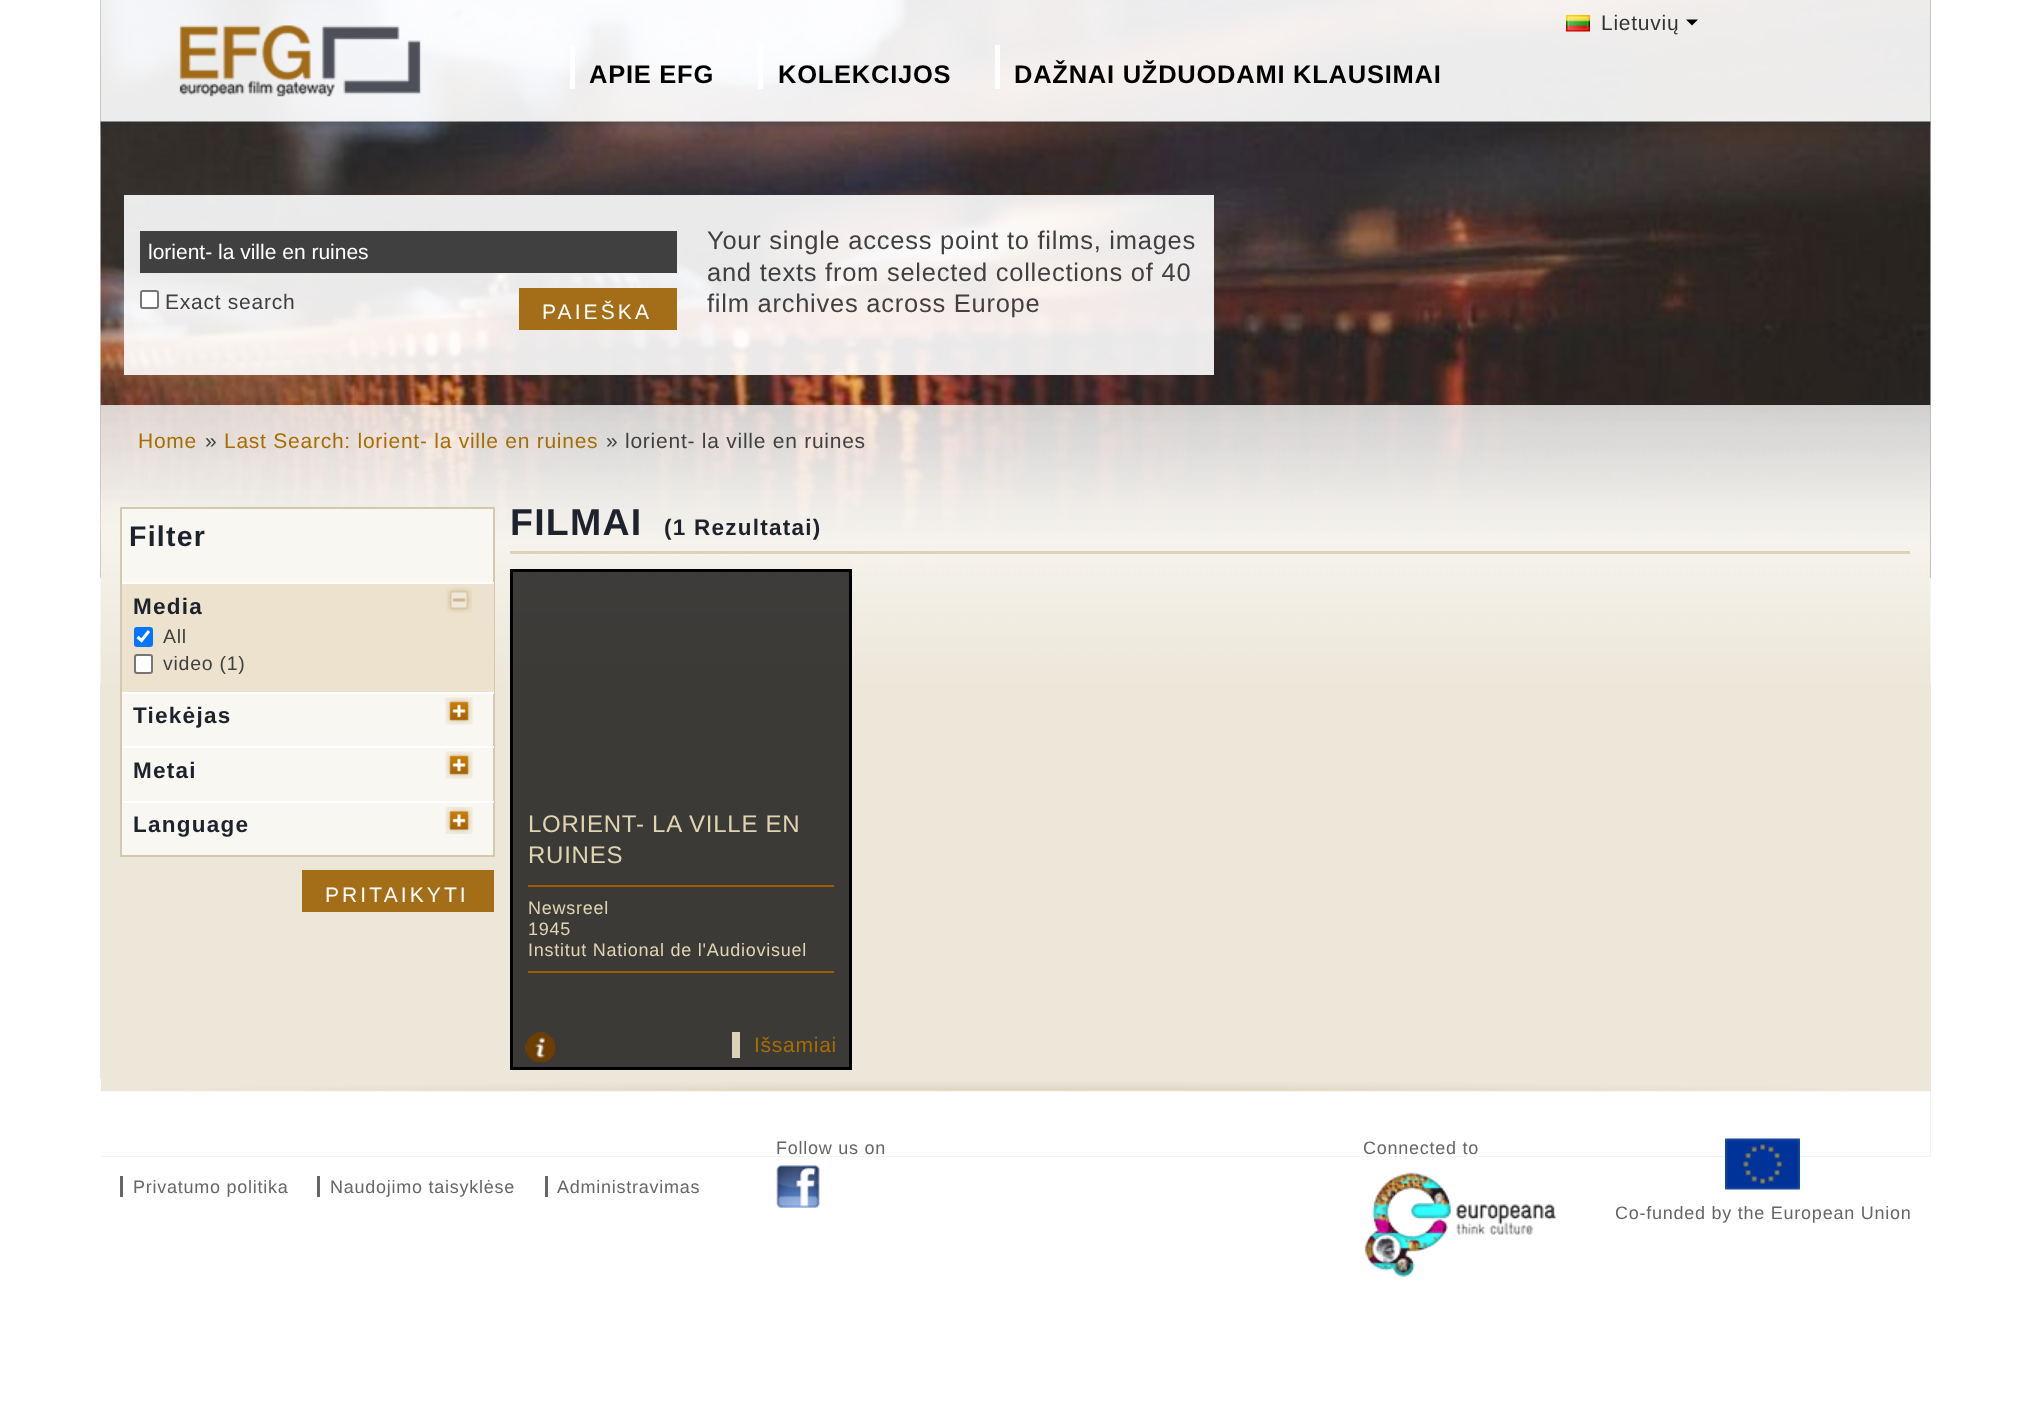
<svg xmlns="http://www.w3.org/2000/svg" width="2030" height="1427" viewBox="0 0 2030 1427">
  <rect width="100%" height="100%" fill="#ffffff"/>
  <image x="100" y="0" width="1831" height="578" href="img1.png"/>
  <image x="100" y="0" width="1831" height="135" href="img2.png"/>
  <image x="1566" y="15" width="24" height="17" href="img3.png"/>
  <text x="1601" y="30" font-family="Liberation Sans" font-size="21" letter-spacing="0.75" fill="#333333">Lietuvių</text>
  <path d="M1686 19.5H1698L1692 25.5Z" fill="#000000"/>
  <rect x="570" y="45" width="5" height="44" fill="#ffffff"/>
  <text x="589" y="83" font-family="Liberation Sans" font-size="25.5" font-weight="bold" letter-spacing="0.75" fill="#000000">APIE EFG</text>
  <rect x="758" y="45" width="5" height="44" fill="#ffffff"/>
  <text x="778" y="83" font-family="Liberation Sans" font-size="25.5" font-weight="bold" letter-spacing="0.75" fill="#000000">KOLEKCIJOS</text>
  <rect x="995" y="45" width="5" height="44" fill="#ffffff"/>
  <text x="1014" y="83" font-family="Liberation Sans" font-size="25.5" font-weight="bold" letter-spacing="0.75" fill="#000000">DAŽNAI UŽDUODAMI KLAUSIMAI</text>
  <rect x="124" y="195" width="1090" height="180" fill="#ffffff" fill-opacity="0.9"/>
  <rect x="140" y="231" width="537" height="42" fill="#404040"/>
  <text x="148" y="259" font-family="Liberation Sans" font-size="21" fill="#ffffff">lorient- la ville en ruines</text>
  <rect x="141" y="291" width="17" height="17" rx="2" fill="#ffffff" stroke="#767676" stroke-width="2"/>
  <text x="165" y="309" font-family="Liberation Sans" font-size="21" letter-spacing="0.75" fill="#404040">Exact search</text>
  <rect x="519" y="288" width="158" height="42" fill="#a46d18"/>
  <text x="542" y="319" font-family="Liberation Sans" font-size="21" letter-spacing="3.1" fill="#ffffff">PAIEŠKA</text>
  <text x="707" y="249" font-family="Liberation Sans" font-size="25.5" letter-spacing="0.75" fill="#404040">Your single access point to films, images</text>
  <text x="707" y="281" font-family="Liberation Sans" font-size="25.5" letter-spacing="0.75" fill="#404040">and texts from selected collections of 40</text>
  <text x="707" y="312" font-family="Liberation Sans" font-size="25.5" letter-spacing="0.75" fill="#404040">film archives across Europe</text>
  <image x="100" y="405" width="1831" height="279" href="img4.png"/>
  <text x="138" y="448" font-family="Liberation Sans" font-size="21" letter-spacing="0.75" fill="#a56d02">Home</text>
  <text x="205" y="448" font-family="Liberation Sans" font-size="21" letter-spacing="0.75" fill="#404040">»</text>
  <text x="224" y="448" font-family="Liberation Sans" font-size="21" letter-spacing="0.75" fill="#a56d02">Last Search: lorient- la ville en ruines</text>
  <text x="606" y="448" font-family="Liberation Sans" font-size="21" letter-spacing="0.75" fill="#404040">» lorient- la ville en ruines</text>
  <rect x="100" y="684" width="1831" height="395" fill="#ece7d9"/>
  <rect x="121" y="508" width="373" height="348" fill="#f9f7f1" stroke="#d4c8ae" stroke-width="2"/>
  <text x="129" y="546" font-family="Liberation Sans" font-size="28.5" font-weight="bold" letter-spacing="1.25" fill="#1e222d">Filter</text>
  <rect x="122" y="584" width="372" height="108" fill="#ece2cd"/>
  <rect x="122" y="582" width="372" height="2" fill="#ffffff"/>
  <text x="133" y="614" font-family="Liberation Sans" font-size="22.5" font-weight="bold" letter-spacing="1.25" fill="#1e222d">Media</text>
  <image x="446" y="587" width="26" height="26" href="img5.png"/>
  <rect x="134" y="627" width="19" height="20" rx="3" fill="#0075ff"/>
  <path d="M137.5 637L141.5 640.5L149 631" fill="none" stroke="#ffffff" stroke-width="3.1"/>
  <text x="163" y="643" font-family="Liberation Sans" font-size="19.5" letter-spacing="0.75" fill="#404040">All</text>
  <rect x="135" y="655" width="17" height="18" rx="2" fill="#ffffff" stroke="#767676" stroke-width="2"/>
  <text x="163" y="670" font-family="Liberation Sans" font-size="19.5" letter-spacing="0.75" fill="#404040">video (1)</text>
  <rect x="122" y="692" width="372" height="2" fill="#ffffff"/>
  <text x="133" y="723" font-family="Liberation Sans" font-size="22.5" font-weight="bold" letter-spacing="1.25" fill="#1e222d">Tiekėjas</text>
  <image x="445" y="697" width="28" height="28" href="img6.png"/>
  <rect x="122" y="746" width="372" height="2" fill="#ffffff"/>
  <text x="133" y="778" font-family="Liberation Sans" font-size="22.5" font-weight="bold" letter-spacing="1.25" fill="#1e222d">Metai</text>
  <image x="445" y="751" width="28" height="28" href="img6.png"/>
  <rect x="122" y="801" width="372" height="2" fill="#ffffff"/>
  <text x="133" y="832" font-family="Liberation Sans" font-size="22.5" font-weight="bold" letter-spacing="1.25" fill="#1e222d">Language</text>
  <image x="445" y="807" width="28" height="27" href="img7.png"/>
  <rect x="302" y="870" width="192" height="42" fill="#a46d18"/>
  <text x="325" y="902" font-family="Liberation Sans" font-size="21" letter-spacing="3.1" fill="#ffffff">PRITAIKYTI</text>
  <rect x="510" y="551" width="1400" height="3" fill="#dbd2b7"/>
  <text x="510" y="535" font-family="Liberation Sans" font-size="37.5" font-weight="bold" letter-spacing="1.25" fill="#1e222d">FILMAI</text>
  <text x="664" y="535" font-family="Liberation Sans" font-size="22.5" font-weight="bold" letter-spacing="1.25" fill="#1e222d">(1 Rezultatai)</text>
  <rect x="511.5" y="570.5" width="339" height="498" fill="#000000" fill-opacity="0.75" stroke="#000000" stroke-width="3"/>
  <text x="528" y="832" font-family="Liberation Sans" font-size="24" letter-spacing="0.75" fill="#e0d4b2">LORIENT- LA VILLE EN</text>
  <text x="528" y="863" font-family="Liberation Sans" font-size="24" letter-spacing="0.75" fill="#e0d4b2">RUINES</text>
  <rect x="528" y="885" width="306" height="2" fill="#a15c02"/>
  <rect x="528" y="971" width="306" height="2" fill="#a15c02"/>
  <text x="528" y="914" font-family="Liberation Sans" font-size="18" letter-spacing="0.75" fill="#e0d4b2">Newsreel</text>
  <text x="528" y="935" font-family="Liberation Sans" font-size="18" letter-spacing="0.75" fill="#e0d4b2">1945</text>
  <text x="528" y="956" font-family="Liberation Sans" font-size="18" letter-spacing="0.75" fill="#e0d4b2">Institut National de l'Audiovisuel</text>
  <image x="525" y="1032" width="30" height="30" href="img8.png"/>
  <rect x="732" y="1032" width="8" height="26" fill="#dbd2b7"/>
  <text x="754" y="1052" font-family="Liberation Sans" font-size="21" letter-spacing="0.75" fill="#a56d02">Išsamiai</text>
  <rect x="101" y="1079" width="1830" height="78" fill="#ece7da"/>
  <image x="101" y="1082" width="1830" height="75" href="img9.png"/>
  <text x="133" y="1193" font-family="Liberation Sans" font-size="18" letter-spacing="0.75" fill="#666666">Privatumo politika</text>
  <rect x="120" y="1176" width="3" height="21" fill="#666666"/>
  <text x="330" y="1193" font-family="Liberation Sans" font-size="18" letter-spacing="0.75" fill="#666666">Naudojimo taisyklėse</text>
  <rect x="317" y="1176" width="3" height="21" fill="#666666"/>
  <text x="557" y="1193" font-family="Liberation Sans" font-size="18" letter-spacing="0.75" fill="#666666">Administravimas</text>
  <rect x="545" y="1176" width="3" height="21" fill="#666666"/>
  <text x="776" y="1154" font-family="Liberation Sans" font-size="18" letter-spacing="0.75" fill="#666666">Follow us on</text>
  <image x="776" y="1165" width="44" height="43" href="img10.png"/>
  <text x="1363" y="1154" font-family="Liberation Sans" font-size="18" letter-spacing="0.75" fill="#666666">Connected to</text>
  <image x="1364" y="1172" width="192" height="105" href="img11.png"/>
  <image x="1725" y="1138" width="75" height="52" href="img12.png"/>
  <text x="1615" y="1219" font-family="Liberation Sans" font-size="18" letter-spacing="0.75" fill="#666666">Co-funded by the European Union</text>
</svg>
